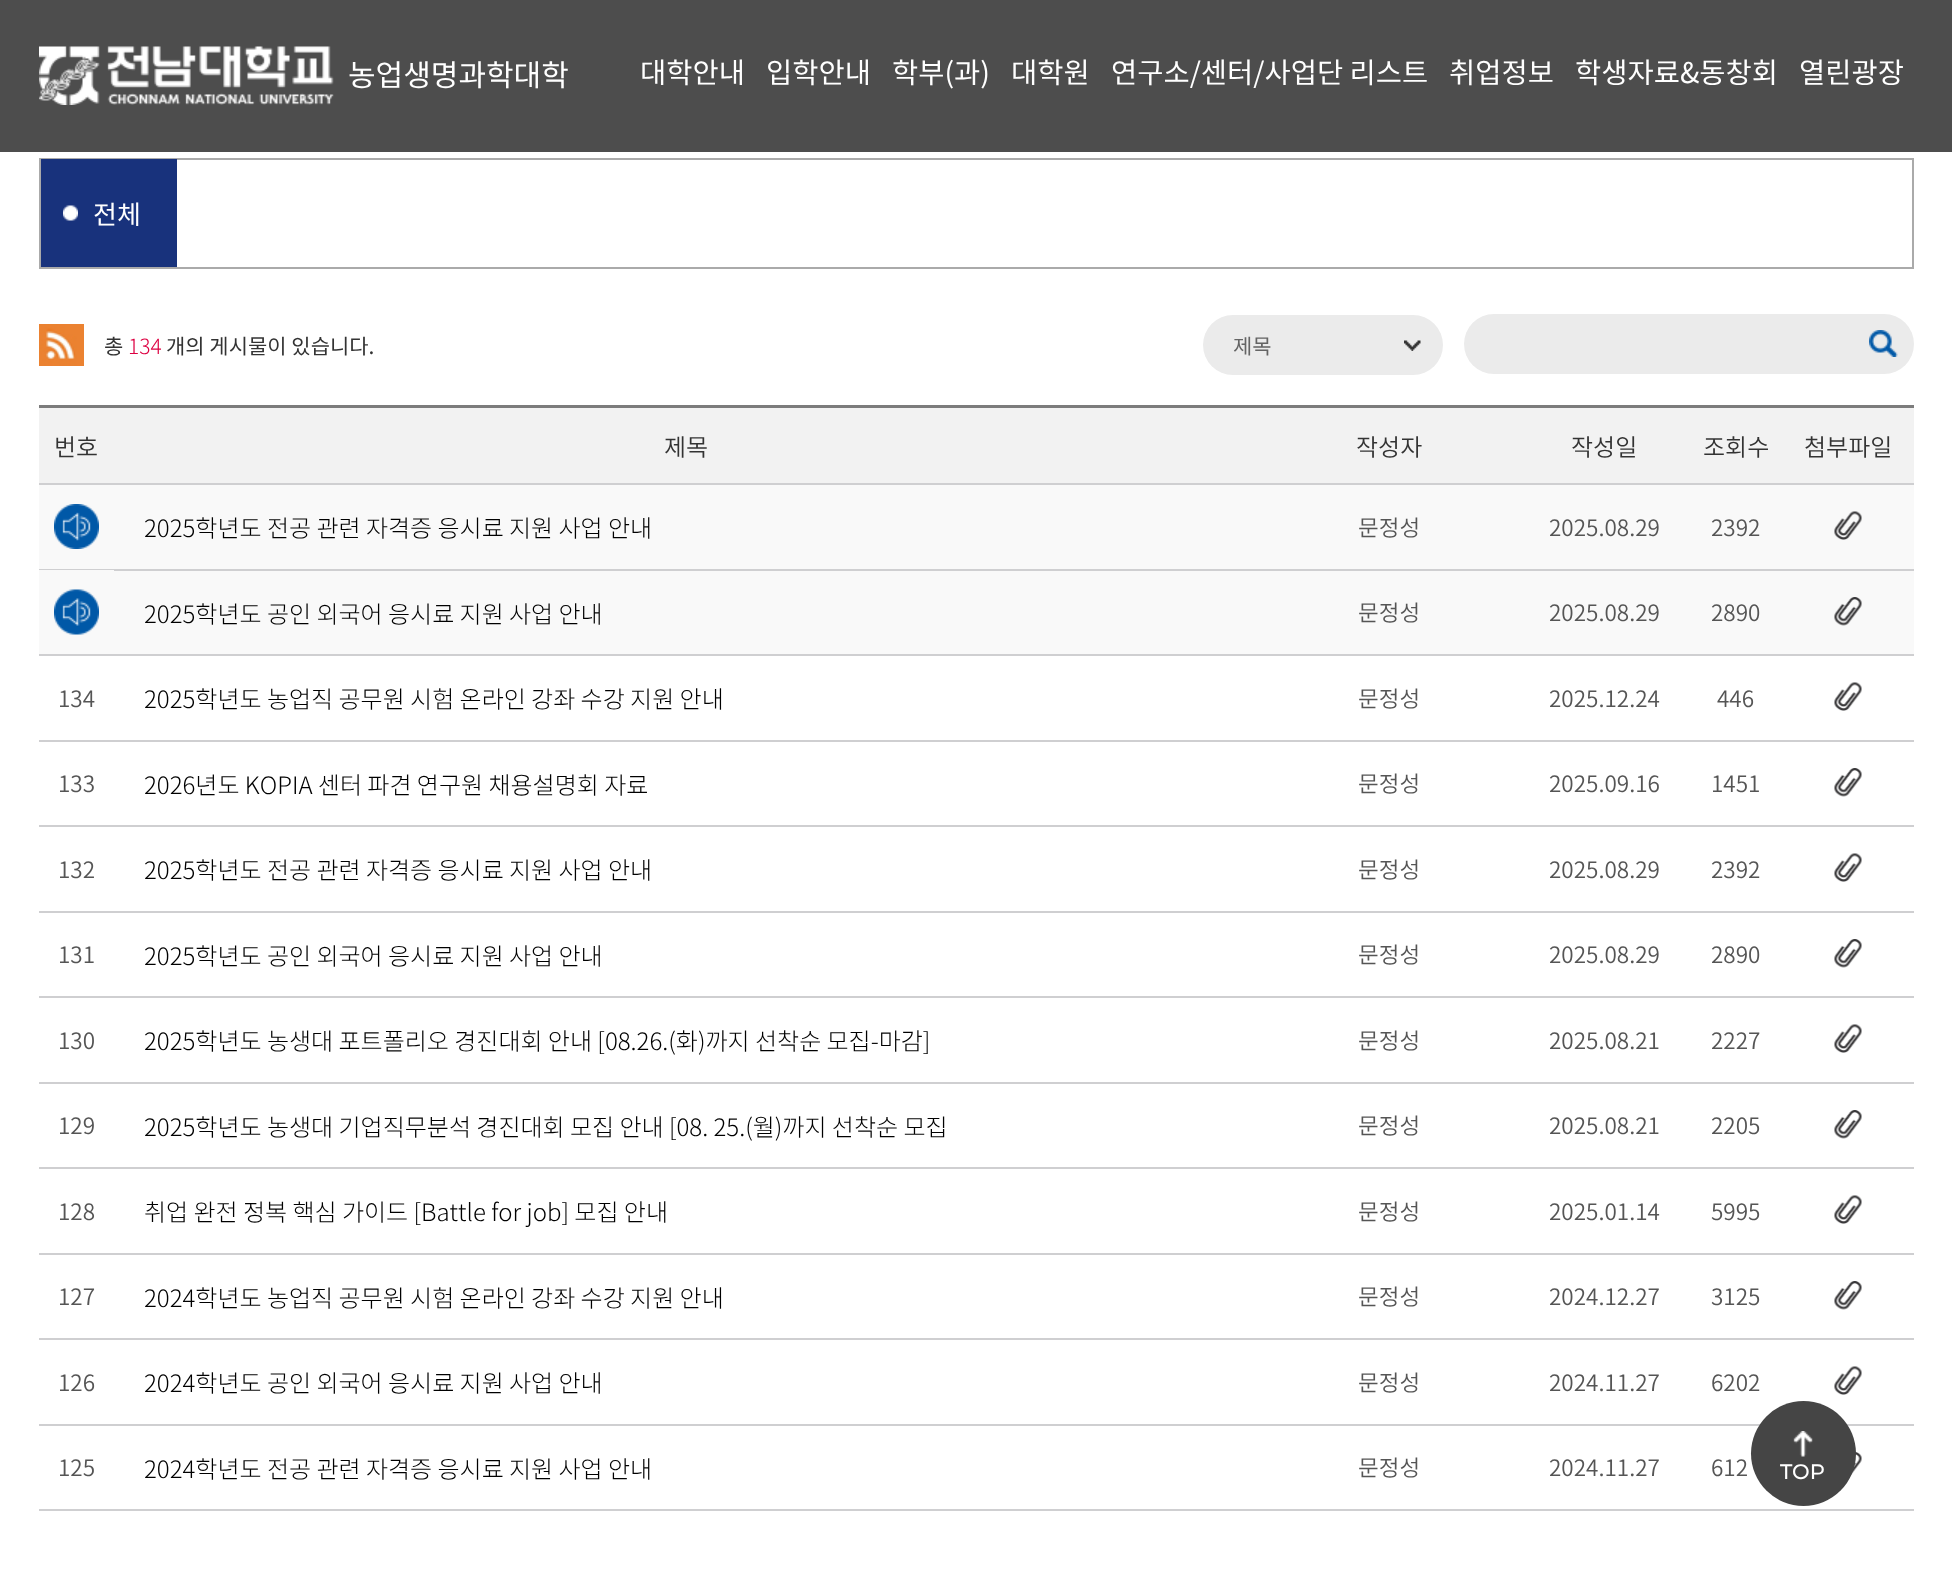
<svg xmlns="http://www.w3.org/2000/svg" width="1952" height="1585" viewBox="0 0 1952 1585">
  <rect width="100%" height="100%" fill="#ffffff"/>
  <rect x="0" y="0" width="1952" height="152" fill="#4d4d4d"/>
  <image x="39" y="46" width="295" height="59" href="img1.png"/>
  <text x="348" y="86" font-family="Noto Sans KR" font-size="30" fill="#ffffff">농업생명과학대학</text>
  <text x="640" y="83" font-family="Noto Sans KR" font-size="28.5" fill="#ffffff">대학안내</text>
  <text x="766" y="83" font-family="Noto Sans KR" font-size="28.5" fill="#ffffff">입학안내</text>
  <text x="892" y="83" font-family="Noto Sans KR" font-size="28.5" fill="#ffffff">학부(과)</text>
  <text x="1011" y="83" font-family="Noto Sans KR" font-size="28.5" fill="#ffffff">대학원</text>
  <text x="1111" y="83" font-family="Noto Sans KR" font-size="28.5" fill="#ffffff">연구소/센터/사업단 리스트</text>
  <text x="1449" y="83" font-family="Noto Sans KR" font-size="28.5" fill="#ffffff">취업정보</text>
  <text x="1575" y="83" font-family="Noto Sans KR" font-size="28.5" fill="#ffffff">학생자료&amp;동창회</text>
  <text x="1799" y="83" font-family="Noto Sans KR" font-size="28.5" fill="#ffffff">열린광장</text>
  <rect x="40" y="159" width="1873" height="109" fill="none" stroke="#aaaaaa" stroke-width="2"/>
  <rect x="41" y="159" width="136" height="108" fill="#18327c"/>
  <image x="63" y="205" width="15" height="16" href="img2.png"/>
  <text x="93" y="224" font-family="Noto Sans KR" font-size="26" fill="#ffffff">전체</text>
  <image x="39" y="324" width="45" height="42" href="img3.png"/>
  <text x="104" y="354" font-family="Noto Sans KR" font-size="21" fill="#333333">총</text>
  <text x="128" y="354" font-family="Noto Sans KR" font-size="21" font-weight="300" fill="#dd0042">134</text>
  <text x="166" y="354" font-family="Noto Sans KR" font-size="21" fill="#333333">개의 게시물이 있습니다.</text>
  <rect x="1203" y="315" width="240" height="60" rx="30" fill="#ebebeb"/>
  <image x="1404" y="340" width="17" height="11" href="img4.png"/>
  <text x="1233" y="354" font-family="Noto Sans KR" font-size="21" fill="#646464">제목</text>
  <rect x="1464" y="314" width="450" height="60" rx="30" fill="#ebebeb"/>
  <image x="1869" y="330" width="29" height="27" href="img5.png"/>
  <rect x="39" y="408" width="1875" height="75" fill="#f2f2f2"/>
  <text x="54" y="456" font-family="'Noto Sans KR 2'" font-size="24" font-weight="300" fill="#333333">번호</text>
  <text x="664" y="456" font-family="'Noto Sans KR 2'" font-size="24" font-weight="300" fill="#333333">제목</text>
  <text x="1356" y="456" font-family="'Noto Sans KR 2'" font-size="24" font-weight="300" fill="#333333">작성자</text>
  <text x="1571" y="456" font-family="'Noto Sans KR 2'" font-size="24" font-weight="300" fill="#333333">작성일</text>
  <text x="1703" y="456" font-family="'Noto Sans KR 2'" font-size="24" font-weight="300" fill="#333333">조회수</text>
  <rect x="39" y="483" width="1875" height="2" fill="#cfcfd1"/>
  <rect x="39" y="405" width="1875" height="3" fill="#7c7c7c"/>
  <text x="1804" y="456" font-family="'Noto Sans KR 2'" font-size="24" font-weight="300" fill="#333333">첨부파일</text>
  <rect x="39" y="485" width="1875" height="84" fill="#f9f9f9"/>
  <image x="54" y="504" width="45" height="45" href="img6.png"/>
  <rect x="39" y="569" width="1875" height="2" fill="#cfcfd1"/>
  <image x="1834" y="511" width="28" height="29" href="img7.png"/>
  <text x="144" y="537" font-family="Noto Sans KR" font-size="24" font-weight="300" fill="#000000">2025학년도 전공 관련 자격증 응시료 지원 사업 안내</text>
  <text x="1358" y="536" font-family="'Noto Sans KR 2'" font-size="22.5" font-weight="300" fill="#555555">문정성</text>
  <text x="1549" y="536" font-family="'Noto Sans KR 2'" font-size="22.5" font-weight="300" fill="#555555">2025.08.29</text>
  <text x="1711" y="536" font-family="'Noto Sans KR 2'" font-size="22.5" font-weight="300" fill="#555555">2392</text>
  <rect x="39" y="571" width="1875" height="83" fill="#f9f9f9"/>
  <image x="39" y="570" width="75" height="65" href="img8.png"/>
  <rect x="39" y="654" width="1875" height="2" fill="#cfcfd1"/>
  <image x="1834" y="597" width="28" height="29" href="img9.png"/>
  <text x="144" y="623" font-family="Noto Sans KR" font-size="24" font-weight="300" fill="#000000">2025학년도 공인 외국어 응시료 지원 사업 안내</text>
  <text x="1358" y="621" font-family="'Noto Sans KR 2'" font-size="22.5" font-weight="300" fill="#555555">문정성</text>
  <text x="1549" y="621" font-family="'Noto Sans KR 2'" font-size="22.5" font-weight="300" fill="#555555">2025.08.29</text>
  <text x="1711" y="621" font-family="'Noto Sans KR 2'" font-size="22.5" font-weight="300" fill="#555555">2890</text>
  <rect x="39" y="740" width="1875" height="2" fill="#cfcfd1"/>
  <image x="1834" y="682" width="28" height="29" href="img10.png"/>
  <text x="58" y="707" font-family="'Noto Sans KR 2'" font-size="22.5" font-weight="300" fill="#555555">134</text>
  <text x="144" y="708" font-family="Noto Sans KR" font-size="24" font-weight="300" fill="#000000">2025학년도 농업직 공무원 시험 온라인 강좌 수강 지원 안내</text>
  <text x="1358" y="707" font-family="'Noto Sans KR 2'" font-size="22.5" font-weight="300" fill="#555555">문정성</text>
  <text x="1549" y="707" font-family="'Noto Sans KR 2'" font-size="22.5" font-weight="300" fill="#555555">2025.12.24</text>
  <text x="1717" y="707" font-family="'Noto Sans KR 2'" font-size="22.5" font-weight="300" fill="#555555">446</text>
  <rect x="39" y="825" width="1875" height="2" fill="#cfcfd1"/>
  <image x="1834" y="768" width="28" height="29" href="img11.png"/>
  <text x="58" y="792" font-family="'Noto Sans KR 2'" font-size="22.5" font-weight="300" fill="#555555">133</text>
  <text x="144" y="794" font-family="Noto Sans KR" font-size="24" font-weight="300" fill="#000000">2026년도 KOPIA 센터 파견 연구원 채용설명회 자료</text>
  <text x="1358" y="792" font-family="'Noto Sans KR 2'" font-size="22.5" font-weight="300" fill="#555555">문정성</text>
  <text x="1549" y="792" font-family="'Noto Sans KR 2'" font-size="22.5" font-weight="300" fill="#555555">2025.09.16</text>
  <text x="1711" y="792" font-family="'Noto Sans KR 2'" font-size="22.5" font-weight="300" fill="#555555">1451</text>
  <rect x="39" y="911" width="1875" height="2" fill="#cfcfd1"/>
  <image x="1834" y="853" width="28" height="29" href="img10.png"/>
  <text x="58" y="878" font-family="'Noto Sans KR 2'" font-size="22.5" font-weight="300" fill="#555555">132</text>
  <text x="144" y="879" font-family="Noto Sans KR" font-size="24" font-weight="300" fill="#000000">2025학년도 전공 관련 자격증 응시료 지원 사업 안내</text>
  <text x="1358" y="878" font-family="'Noto Sans KR 2'" font-size="22.5" font-weight="300" fill="#555555">문정성</text>
  <text x="1549" y="878" font-family="'Noto Sans KR 2'" font-size="22.5" font-weight="300" fill="#555555">2025.08.29</text>
  <text x="1711" y="878" font-family="'Noto Sans KR 2'" font-size="22.5" font-weight="300" fill="#555555">2392</text>
  <rect x="39" y="996" width="1875" height="2" fill="#cfcfd1"/>
  <image x="1834" y="939" width="28" height="29" href="img11.png"/>
  <text x="58" y="963" font-family="'Noto Sans KR 2'" font-size="22.5" font-weight="300" fill="#555555">131</text>
  <text x="144" y="965" font-family="Noto Sans KR" font-size="24" font-weight="300" fill="#000000">2025학년도 공인 외국어 응시료 지원 사업 안내</text>
  <text x="1358" y="963" font-family="'Noto Sans KR 2'" font-size="22.5" font-weight="300" fill="#555555">문정성</text>
  <text x="1549" y="963" font-family="'Noto Sans KR 2'" font-size="22.5" font-weight="300" fill="#555555">2025.08.29</text>
  <text x="1711" y="963" font-family="'Noto Sans KR 2'" font-size="22.5" font-weight="300" fill="#555555">2890</text>
  <rect x="39" y="1082" width="1875" height="2" fill="#cfcfd1"/>
  <image x="1834" y="1024" width="28" height="29" href="img10.png"/>
  <text x="58" y="1049" font-family="'Noto Sans KR 2'" font-size="22.5" font-weight="300" fill="#555555">130</text>
  <text x="144" y="1050" font-family="Noto Sans KR" font-size="24" font-weight="300" fill="#000000">2025학년도 농생대 포트폴리오 경진대회 안내 [08.26.(화)까지 선착순 모집-마감]</text>
  <text x="1358" y="1049" font-family="'Noto Sans KR 2'" font-size="22.5" font-weight="300" fill="#555555">문정성</text>
  <text x="1549" y="1049" font-family="'Noto Sans KR 2'" font-size="22.5" font-weight="300" fill="#555555">2025.08.21</text>
  <text x="1711" y="1049" font-family="'Noto Sans KR 2'" font-size="22.5" font-weight="300" fill="#555555">2227</text>
  <rect x="39" y="1167" width="1875" height="2" fill="#cfcfd1"/>
  <image x="1834" y="1110" width="28" height="29" href="img11.png"/>
  <text x="58" y="1134" font-family="'Noto Sans KR 2'" font-size="22.5" font-weight="300" fill="#555555">129</text>
  <text x="144" y="1136" font-family="Noto Sans KR" font-size="24" font-weight="300" fill="#000000">2025학년도 농생대 기업직무분석 경진대회 모집 안내 [08. 25.(월)까지 선착순 모집</text>
  <text x="1358" y="1134" font-family="'Noto Sans KR 2'" font-size="22.5" font-weight="300" fill="#555555">문정성</text>
  <text x="1549" y="1134" font-family="'Noto Sans KR 2'" font-size="22.5" font-weight="300" fill="#555555">2025.08.21</text>
  <text x="1711" y="1134" font-family="'Noto Sans KR 2'" font-size="22.5" font-weight="300" fill="#555555">2205</text>
  <rect x="39" y="1253" width="1875" height="2" fill="#cfcfd1"/>
  <image x="1834" y="1195" width="28" height="29" href="img10.png"/>
  <text x="58" y="1220" font-family="'Noto Sans KR 2'" font-size="22.5" font-weight="300" fill="#555555">128</text>
  <text x="144" y="1221" font-family="Noto Sans KR" font-size="24" font-weight="300" fill="#000000">취업 완전 정복 핵심 가이드 [Battle for job] 모집 안내</text>
  <text x="1358" y="1220" font-family="'Noto Sans KR 2'" font-size="22.5" font-weight="300" fill="#555555">문정성</text>
  <text x="1549" y="1220" font-family="'Noto Sans KR 2'" font-size="22.5" font-weight="300" fill="#555555">2025.01.14</text>
  <text x="1711" y="1220" font-family="'Noto Sans KR 2'" font-size="22.5" font-weight="300" fill="#555555">5995</text>
  <rect x="39" y="1338" width="1875" height="2" fill="#cfcfd1"/>
  <image x="1834" y="1281" width="28" height="29" href="img11.png"/>
  <text x="58" y="1305" font-family="'Noto Sans KR 2'" font-size="22.5" font-weight="300" fill="#555555">127</text>
  <text x="144" y="1307" font-family="Noto Sans KR" font-size="24" font-weight="300" fill="#000000">2024학년도 농업직 공무원 시험 온라인 강좌 수강 지원 안내</text>
  <text x="1358" y="1305" font-family="'Noto Sans KR 2'" font-size="22.5" font-weight="300" fill="#555555">문정성</text>
  <text x="1549" y="1305" font-family="'Noto Sans KR 2'" font-size="22.5" font-weight="300" fill="#555555">2024.12.27</text>
  <text x="1711" y="1305" font-family="'Noto Sans KR 2'" font-size="22.5" font-weight="300" fill="#555555">3125</text>
  <text x="58" y="1391" font-family="'Noto Sans KR 2'" font-size="22.5" font-weight="300" fill="#555555">126</text>
  <text x="144" y="1392" font-family="Noto Sans KR" font-size="24" font-weight="300" fill="#000000">2024학년도 공인 외국어 응시료 지원 사업 안내</text>
  <text x="1358" y="1391" font-family="'Noto Sans KR 2'" font-size="22.5" font-weight="300" fill="#555555">문정성</text>
  <text x="1549" y="1391" font-family="'Noto Sans KR 2'" font-size="22.5" font-weight="300" fill="#555555">2024.11.27</text>
  <rect x="39" y="1424" width="1721" height="2" fill="#cfcfd1"/>
  <text x="1711" y="1391" font-family="'Noto Sans KR 2'" font-size="22.5" font-weight="300" fill="#555555">6202</text>
  <rect x="1847" y="1424" width="67" height="2" fill="#cfcfd1"/>
  <image x="1834" y="1366" width="28" height="29" href="img10.png"/>
  <rect x="39" y="1509" width="1875" height="2" fill="#cfcfd1"/>
  <image x="1849" y="1452" width="13" height="26" href="img12.png"/>
  <text x="58" y="1476" font-family="'Noto Sans KR 2'" font-size="22.5" font-weight="300" fill="#555555">125</text>
  <text x="144" y="1478" font-family="Noto Sans KR" font-size="24" font-weight="300" fill="#000000">2024학년도 전공 관련 자격증 응시료 지원 사업 안내</text>
  <text x="1358" y="1476" font-family="'Noto Sans KR 2'" font-size="22.5" font-weight="300" fill="#555555">문정성</text>
  <text x="1549" y="1476" font-family="'Noto Sans KR 2'" font-size="22.5" font-weight="300" fill="#555555">2024.11.27</text>
  <text x="1711" y="1476" font-family="'Noto Sans KR 2'" font-size="22.5" font-weight="300" fill="#555555">612</text>
  <circle cx="1803.5" cy="1453.5" r="52.5" fill="#454545"/>
  <image x="1793" y="1431" width="20" height="26" href="img13.png"/>
  <text x="1780" y="1479" font-family="Montserrat" font-size="21" font-weight="500" fill="#ffffff">TOP</text>
</svg>
